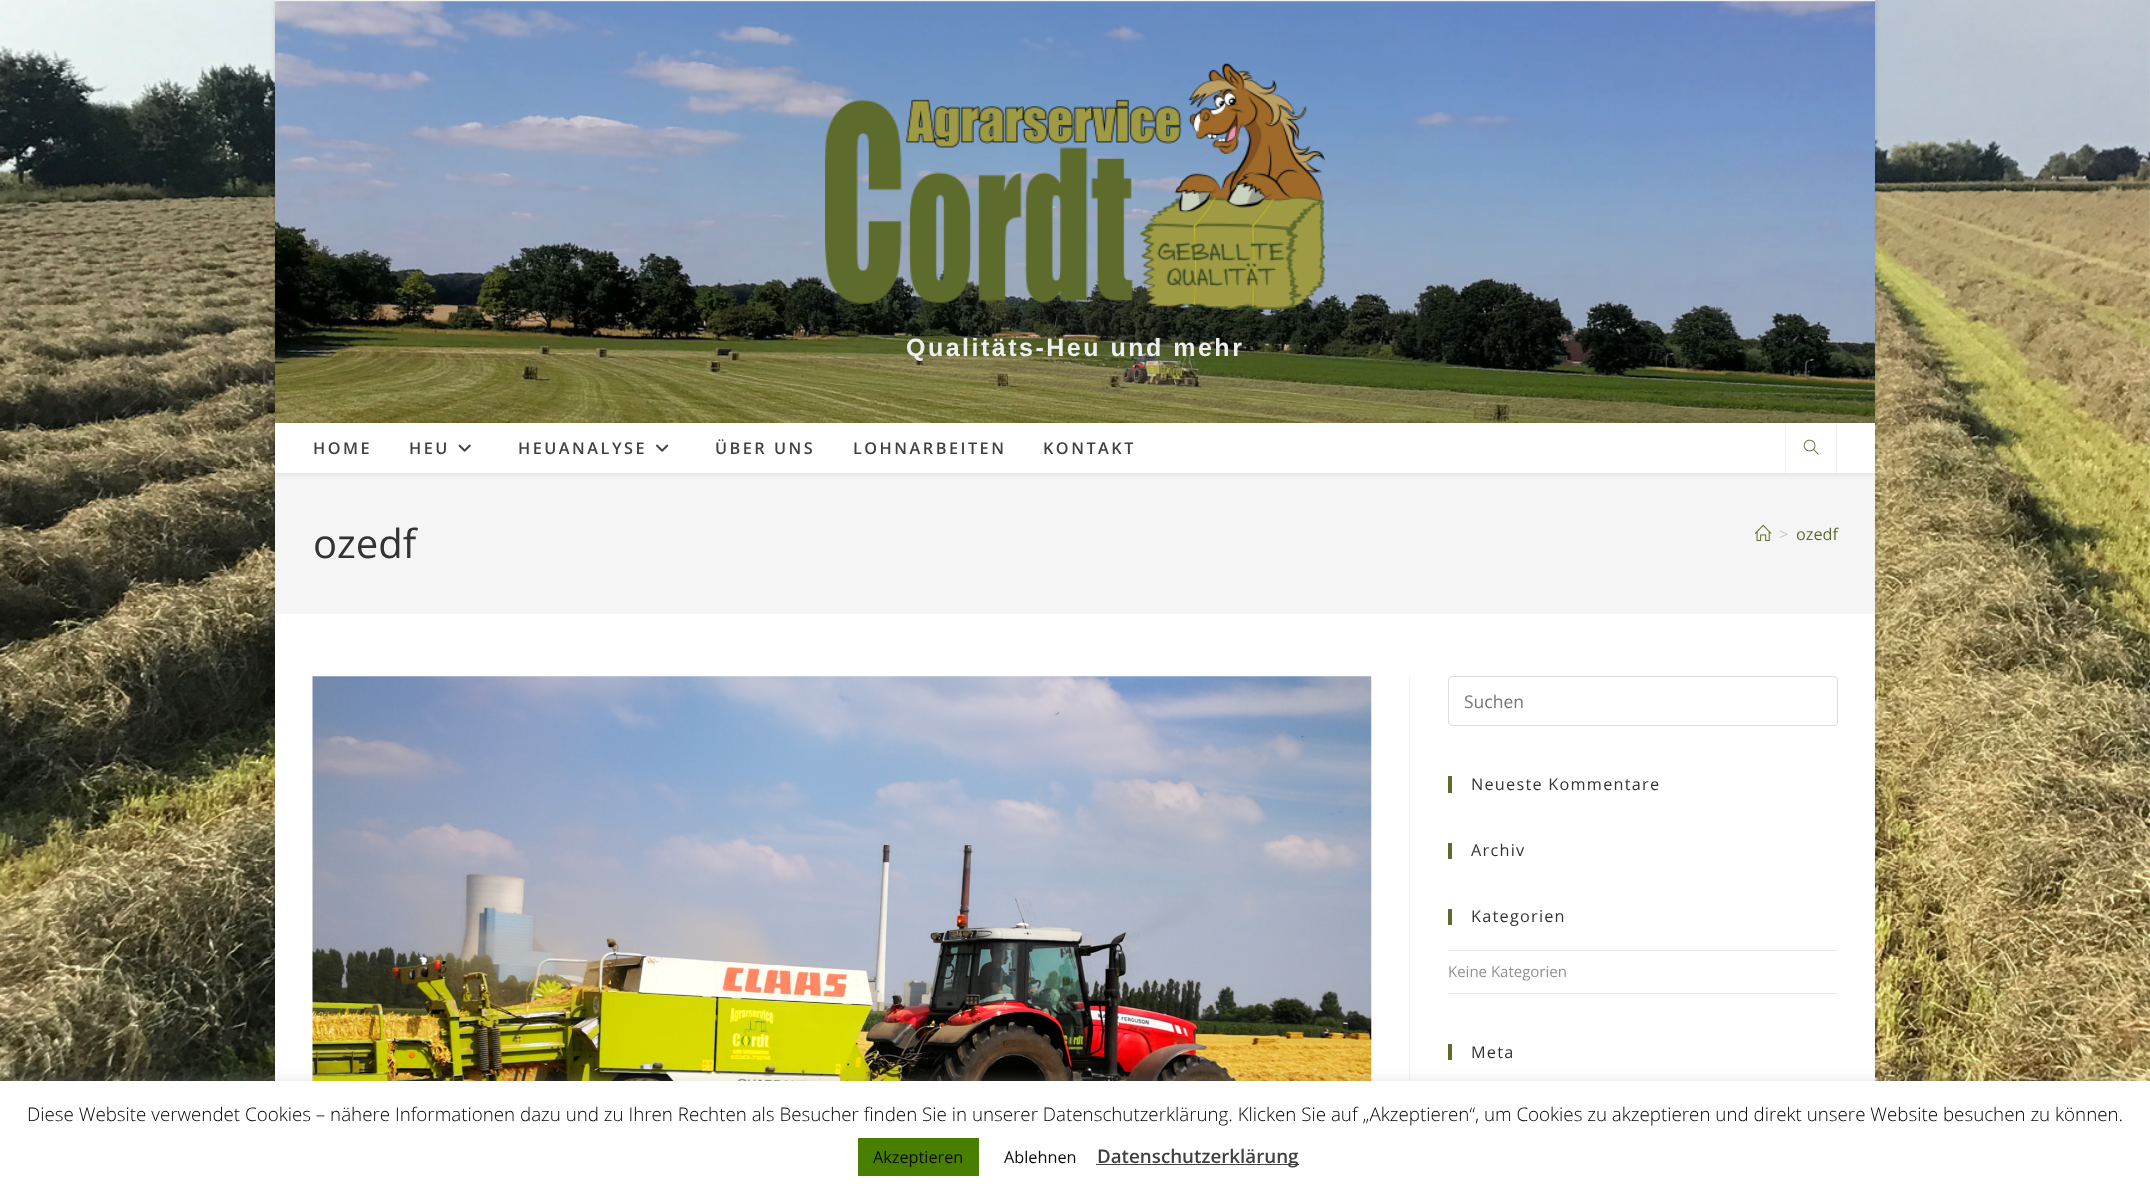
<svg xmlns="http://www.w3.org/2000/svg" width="2150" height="1191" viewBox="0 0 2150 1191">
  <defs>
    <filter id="blur1" x="-50%" y="-200%" width="200%" height="500%"><feGaussianBlur stdDeviation="2.5"/></filter>
    <filter id="blur2" x="-50%" y="-200%" width="200%" height="500%"><feGaussianBlur stdDeviation="3"/></filter>
    <filter id="blur3" x="-50%" y="-200%" width="200%" height="500%"><feGaussianBlur stdDeviation="6"/></filter>
  </defs>
  <rect width="100%" height="100%" fill="#ffffff"/>
  <image x="0" y="0" width="2150" height="1081" href="img1.png"/>
  <rect x="275" y="1" width="1600" height="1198" fill="#000000" fill-opacity="0.15" filter="url(#blur1)"/>
  <rect x="275" y="1" width="1600" height="1080" fill="#ffffff"/>
  <rect x="275" y="0" width="1600" height="1" fill="#f1f1f1"/>
  <image x="275" y="1" width="1600" height="422" href="img2.png"/>
  <rect x="275" y="1" width="1600" height="422" fill="#000000" fill-opacity="0.1"/>
  <image x="825" y="63" width="500" height="247" href="img3.png"/>
  <text x="906" y="356" font-family="Liberation Sans" font-size="25" font-weight="bold" letter-spacing="2.5" fill="#eeeeee">Qualitäts-Heu und mehr</text>
  <rect x="275" y="473" width="1600" height="141" fill="#f5f5f5"/>
  <rect x="275" y="424" width="1600" height="50" fill="#000000" fill-opacity="0.1" filter="url(#blur2)"/>
  <rect x="275" y="423" width="1600" height="50" fill="#ffffff"/>
  <text x="313" y="454" font-family="Open Sans" font-size="16.25" font-weight="600" letter-spacing="2.5" fill="#404040">HOME</text>
  <text x="409" y="454" font-family="Open Sans" font-size="16.25" font-weight="600" letter-spacing="2.5" fill="#404040">HEU</text>
  <image x="458" y="444" width="13" height="8" href="img4.png"/>
  <text x="518" y="454" font-family="Open Sans" font-size="16.25" font-weight="600" letter-spacing="2.5" fill="#404040">HEUANALYSE</text>
  <image x="656" y="444" width="13" height="8" href="img5.png"/>
  <text x="715" y="454" font-family="Open Sans" font-size="16.25" font-weight="600" letter-spacing="2.5" fill="#404040">ÜBER UNS</text>
  <text x="853" y="454" font-family="Open Sans" font-size="16.25" font-weight="600" letter-spacing="2.5" fill="#404040">LOHNARBEITEN</text>
  <text x="1043" y="454" font-family="Open Sans" font-size="16.25" font-weight="600" letter-spacing="2.5" fill="#404040">KONTAKT</text>
  <rect x="1836" y="423" width="1" height="50" fill="#f1f1f1"/>
  <rect x="1785" y="423" width="1" height="50" fill="#f1f1f1"/>
  <image x="1803" y="439" width="16" height="16" href="img6.png"/>
  <text x="313" y="558" font-family="Open Sans" font-size="40" fill="#333333">ozedf</text>
  <image x="1755" y="524" width="17" height="17" href="img7.png"/>
  <text x="1779" y="540" font-family="Open Sans" font-size="16.25" fill="#c6c6c6">&gt;</text>
  <text x="1796" y="540" font-family="Open Sans" font-size="16.25" fill="#5d6c2d">ozedf</text>
  <rect x="1409" y="676" width="1" height="405" fill="#f1f1f1"/>
  <image x="312" y="676" width="1060" height="405" href="img8.png"/>
  <rect x="1448.5" y="676.5" width="389" height="49" rx="3.5" fill="none" stroke="#dddddd"/>
  <text x="1464" y="708" font-family="Open Sans" font-size="17.5" fill="#757575">Suchen</text>
  <rect x="1448" y="776" width="4" height="17" fill="#5d6c2d"/>
  <text x="1471" y="790" font-family="Open Sans" font-size="16.25" letter-spacing="1.25" fill="#333333">Neueste Kommentare</text>
  <rect x="1448" y="843" width="4" height="16" fill="#5d6c2d"/>
  <text x="1471" y="856" font-family="Open Sans" font-size="16.25" letter-spacing="1.25" fill="#333333">Archiv</text>
  <rect x="1448" y="909" width="4" height="16" fill="#5d6c2d"/>
  <text x="1471" y="922" font-family="Open Sans" font-size="16.25" letter-spacing="1.25" fill="#333333">Kategorien</text>
  <rect x="1448" y="950" width="390" height="1" fill="#e9e9e9"/>
  <rect x="1448" y="993" width="390" height="1" fill="#e9e9e9"/>
  <text x="1448" y="977" font-family="Open Sans" font-size="15" fill="#919191">Keine Kategorien</text>
  <rect x="1448" y="1044" width="4" height="16" fill="#5d6c2d"/>
  <text x="1471" y="1058" font-family="Open Sans" font-size="16.25" letter-spacing="1.25" fill="#333333">Meta</text>
  <rect x="0" y="1080" width="2150" height="110" fill="#acabab" fill-opacity="0.3" filter="url(#blur3)"/>
  <rect x="0" y="1081" width="2150" height="110" fill="#ffffff"/>
  <text x="27" y="1121" font-family="Open Sans" font-size="18.75" font-weight="300" fill="#000000">Diese Website verwendet Cookies – nähere Informationen dazu und zu Ihren Rechten als Besucher finden Sie in unserer Datenschutzerklärung. Klicken Sie auf „Akzeptieren“, um Cookies zu akzeptieren und direkt unsere Website besuchen zu können.</text>
  <rect x="858" y="1138" width="121" height="38" fill="#487f00"/>
  <text x="873" y="1163" font-family="Open Sans" font-size="16.25" fill="#0a0a0a">Akzeptieren</text>
  <text x="1004" y="1163" font-family="Open Sans" font-size="16.25" fill="#0a0a0a">Ablehnen</text>
  <rect x="1096" y="1164" width="203" height="1" fill="#444444"/>
  <text x="1097" y="1163" font-family="Open Sans" font-size="18.75" font-weight="600" fill="#404040">Datenschutzerklärung</text>
</svg>
